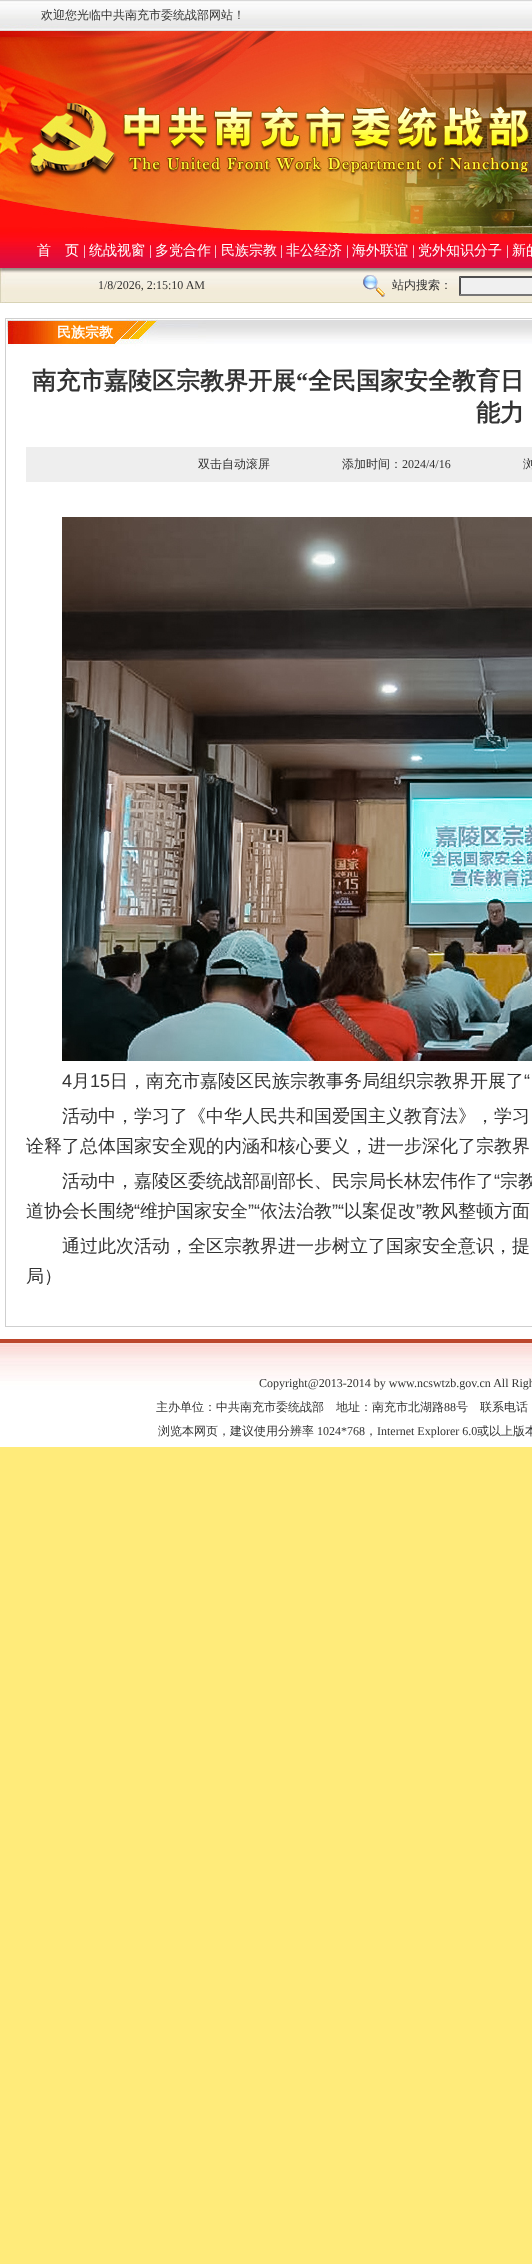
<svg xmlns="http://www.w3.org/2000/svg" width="532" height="2264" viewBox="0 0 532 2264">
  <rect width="100%" height="100%" fill="#ffeb7a"/>
  <image x="0" y="0" width="532" height="31" href="img1.png"/>
  <text x="41" y="19" font-family="WenQuanYi Zen Hei" font-size="12" font-weight="500" fill="#333333">欢迎您光临中共南充市委统战部网站！</text>
  <image x="0" y="31" width="532" height="203" href="img2.png"/>
  <image x="0" y="234" width="532" height="34" href="img3.png"/>
  <text x="37" y="255" font-family="WenQuanYi Zen Hei" font-size="14" font-weight="500" fill="#ffffff">首　页</text>
  <text x="83" y="255" font-family="Liberation Serif" font-size="14" fill="#ffffff">|</text>
  <text x="89" y="255" font-family="WenQuanYi Zen Hei" font-size="14" font-weight="500" fill="#ffffff">统战视窗</text>
  <text x="149" y="255" font-family="Liberation Serif" font-size="14" fill="#ffffff">|</text>
  <text x="155" y="255" font-family="WenQuanYi Zen Hei" font-size="14" font-weight="500" fill="#ffffff">多党合作</text>
  <text x="214" y="255" font-family="Liberation Serif" font-size="14" fill="#ffffff">|</text>
  <text x="221" y="255" font-family="WenQuanYi Zen Hei" font-size="14" font-weight="500" fill="#ffffff">民族宗教</text>
  <text x="280" y="255" font-family="Liberation Serif" font-size="14" fill="#ffffff">|</text>
  <text x="286" y="255" font-family="WenQuanYi Zen Hei" font-size="14" font-weight="500" fill="#ffffff">非公经济</text>
  <text x="346" y="255" font-family="Liberation Serif" font-size="14" fill="#ffffff">|</text>
  <text x="352" y="255" font-family="WenQuanYi Zen Hei" font-size="14" font-weight="500" fill="#ffffff">海外联谊</text>
  <text x="412" y="255" font-family="Liberation Serif" font-size="14" fill="#ffffff">|</text>
  <text x="418" y="255" font-family="WenQuanYi Zen Hei" font-size="14" font-weight="500" fill="#ffffff">党外知识分子</text>
  <text x="506" y="255" font-family="Liberation Serif" font-size="14" fill="#ffffff">|</text>
  <text x="512" y="255" font-family="WenQuanYi Zen Hei" font-size="14" font-weight="500" fill="#ffffff">新的</text>
  <image x="6" y="268" width="526" height="35" href="img4.png"/>
  <image x="0" y="268" width="6" height="35" href="img5.png"/>
  <text x="98" y="289" font-family="Liberation Serif" font-size="12" fill="#333333">1/8/2026, 2:15:10 AM</text>
  <image x="363" y="275" width="22" height="22" href="img6.png"/>
  <text x="392" y="289" font-family="WenQuanYi Zen Hei" font-size="12" font-weight="500" fill="#333333">站内搜索：</text>
  <rect x="459" y="276" width="73" height="20" fill="#f0f0f0"/>
  <path d="M459 276H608L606 278H461Z" fill="#4f4f4f"/>
  <path d="M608 296H459L461 294H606Z" fill="#767676"/>
  <path d="M459 296V276L461 278V294Z" fill="#4f4f4f"/>
  <rect x="0" y="303" width="532" height="15" fill="#ffffff"/>
  <rect x="0" y="318" width="5" height="1009" fill="#ffffff"/>
  <rect x="5" y="318" width="527" height="1009" fill="#cfcfcf"/>
  <rect x="6" y="347" width="526" height="979" fill="#ffffff"/>
  <image x="6" y="319" width="526" height="28" href="img7.png"/>
  <text x="57" y="337" font-family="WenQuanYi Zen Hei" font-size="14" font-weight="bold" fill="#ffffff">民族宗教</text>
  <text x="32" y="389" font-family="WenQuanYi Zen Hei" font-size="24" font-weight="bold" fill="#333333">南充市嘉陵区宗教界开展</text>
  <text x="296" y="389" font-family="Liberation Serif" font-size="24" font-weight="bold" fill="#333333">“</text>
  <text x="308" y="389" font-family="WenQuanYi Zen Hei" font-size="24" font-weight="bold" fill="#333333">全民国家安全教育日</text>
  <text x="476" y="421" font-family="WenQuanYi Zen Hei" font-size="24" font-weight="bold" fill="#333333">能力</text>
  <rect x="26" y="447" width="506" height="35" fill="#eeeeee"/>
  <text x="198" y="468" font-family="WenQuanYi Zen Hei" font-size="12" font-weight="500" fill="#333333">双击自动滚屏　　　　　　添加时间：</text>
  <text x="402" y="468" font-family="Liberation Serif" font-size="12" fill="#333333">2024/4/16</text>
  <text x="523" y="468" font-family="WenQuanYi Zen Hei" font-size="12" font-weight="500" fill="#333333">浏</text>
  <image x="62" y="517" width="470" height="544" href="img8.png"/>
  <text x="62" y="1087" font-family="Liberation Sans" font-size="18" fill="#333333">4</text>
  <text x="72" y="1087" font-family="WenQuanYi Zen Hei" font-size="18" font-weight="500" fill="#333333">月</text>
  <text x="90" y="1087" font-family="Liberation Sans" font-size="18" fill="#333333">15</text>
  <text x="110" y="1087" font-family="WenQuanYi Zen Hei" font-size="18" font-weight="500" fill="#333333">日，南充市嘉陵区民族宗教事务局组织宗教界开展了</text>
  <text x="524" y="1087" font-family="Liberation Sans" font-size="18" fill="#333333">“</text>
  <text x="62" y="1122" font-family="WenQuanYi Zen Hei" font-size="18" font-weight="500" fill="#333333">活动中，学习了《中华人民共和国爱国主义教育法》，学习</text>
  <text x="26" y="1152" font-family="WenQuanYi Zen Hei" font-size="18" font-weight="500" fill="#333333">诠释了总体国家安全观的内涵和核心要义，进一步深化了宗教界</text>
  <text x="62" y="1187" font-family="WenQuanYi Zen Hei" font-size="18" font-weight="500" fill="#333333">活动中，嘉陵区委统战部副部长、民宗局长林宏伟作了</text>
  <text x="494" y="1187" font-family="Liberation Sans" font-size="18" fill="#333333">“</text>
  <text x="500" y="1187" font-family="WenQuanYi Zen Hei" font-size="18" font-weight="500" fill="#333333">宗教</text>
  <text x="26" y="1217" font-family="WenQuanYi Zen Hei" font-size="18" font-weight="500" fill="#333333">道协会长围绕</text>
  <text x="134" y="1217" font-family="Liberation Sans" font-size="18" fill="#333333">“</text>
  <text x="140" y="1217" font-family="WenQuanYi Zen Hei" font-size="18" font-weight="500" fill="#333333">维护国家安全</text>
  <text x="248" y="1217" font-family="Liberation Sans" font-size="18" fill="#333333">”“</text>
  <text x="260" y="1217" font-family="WenQuanYi Zen Hei" font-size="18" font-weight="500" fill="#333333">依法治教</text>
  <text x="332" y="1217" font-family="Liberation Sans" font-size="18" fill="#333333">”“</text>
  <text x="344" y="1217" font-family="WenQuanYi Zen Hei" font-size="18" font-weight="500" fill="#333333">以案促改</text>
  <text x="416" y="1217" font-family="Liberation Sans" font-size="18" fill="#333333">”</text>
  <text x="422" y="1217" font-family="WenQuanYi Zen Hei" font-size="18" font-weight="500" fill="#333333">教风整顿方面</text>
  <text x="62" y="1252" font-family="WenQuanYi Zen Hei" font-size="18" font-weight="500" fill="#333333">通过此次活动，全区宗教界进一步树立了国家安全意识，提</text>
  <text x="26" y="1282" font-family="WenQuanYi Zen Hei" font-size="18" font-weight="500" fill="#333333">局）</text>
  <image x="0" y="1327" width="532" height="120" href="img9.png"/>
  <text x="259" y="1387" font-family="Liberation Serif" font-size="12" fill="#333333">Copyright@2013-2014 by www.ncswtzb.gov.cn All Righ</text>
  <text x="156" y="1411" font-family="WenQuanYi Zen Hei" font-size="12" font-weight="500" fill="#333333">主办单位：中共南充市委统战部　地址：南充市北湖路</text>
  <text x="444" y="1411" font-family="Liberation Serif" font-size="12" fill="#333333">88</text>
  <text x="456" y="1411" font-family="WenQuanYi Zen Hei" font-size="12" font-weight="500" fill="#333333">号　联系电话</text>
  <text x="158" y="1435" font-family="WenQuanYi Zen Hei" font-size="12" font-weight="500" fill="#333333">浏览本网页，建议使用分辨率</text>
  <text x="317" y="1435" font-family="Liberation Serif" font-size="12" fill="#333333">1024*768</text>
  <text x="365" y="1435" font-family="WenQuanYi Zen Hei" font-size="12" font-weight="500" fill="#333333">，</text>
  <text x="377" y="1435" font-family="Liberation Serif" font-size="12" fill="#333333">Internet Explorer 6.0</text>
  <text x="477" y="1435" font-family="WenQuanYi Zen Hei" font-size="12" font-weight="500" fill="#333333">或以上版本</text>
</svg>
